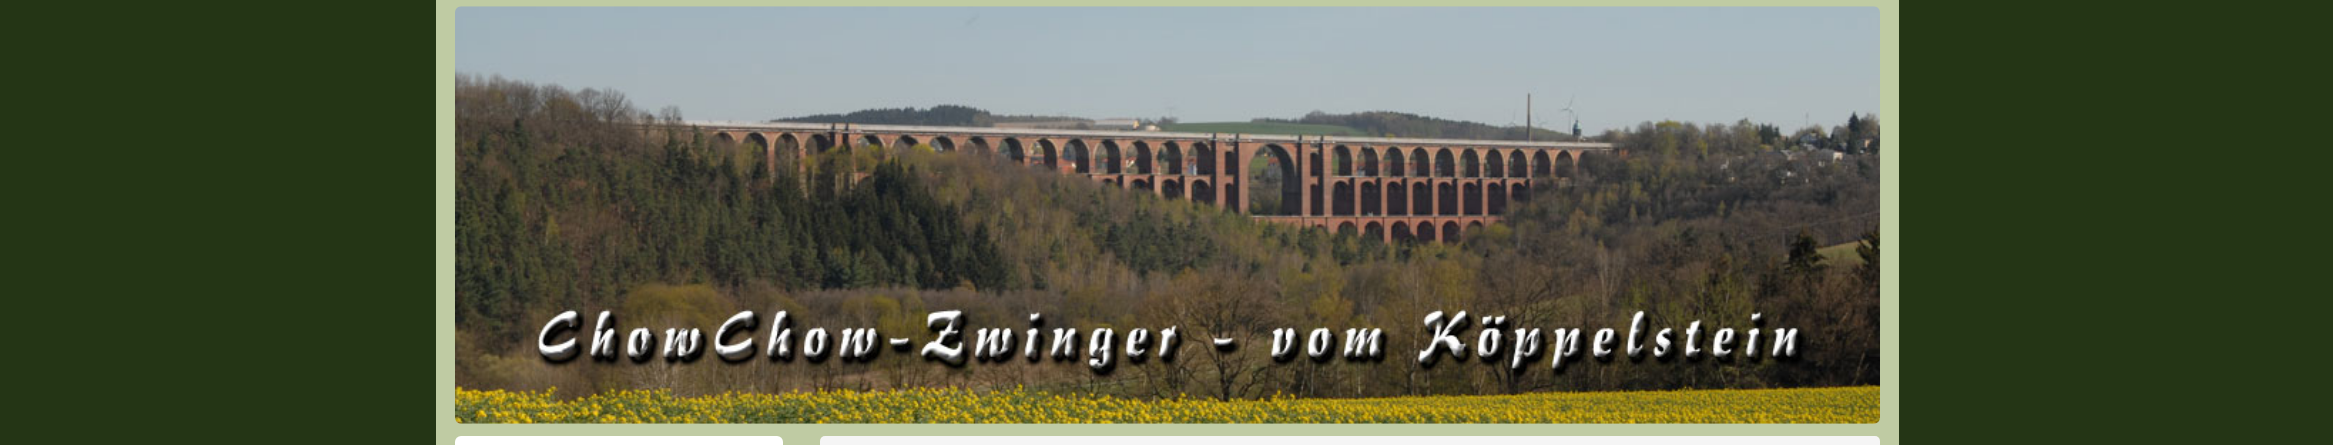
<svg xmlns="http://www.w3.org/2000/svg" width="2333" height="445" viewBox="0 0 2333 445">
  <rect width="100%" height="100%" fill="#243515"/>
  <rect x="436" y="0" width="1463" height="445" fill="#bfcba3"/>
  <image x="455" y="6" width="1425" height="418" href="img1.png"/>
  <rect x="455" y="436" width="328" height="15" rx="6" fill="#ffffff"/>
  <rect x="820" y="436" width="1060" height="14" rx="5" fill="#f5f5f5"/>
</svg>
